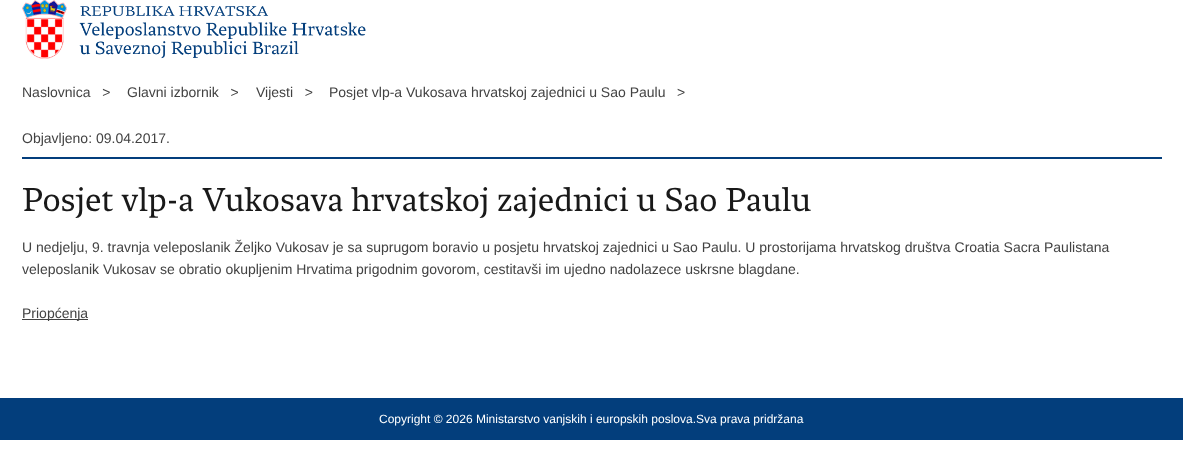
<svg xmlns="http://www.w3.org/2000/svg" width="1183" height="466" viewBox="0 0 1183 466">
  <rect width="100%" height="100%" fill="#ffffff"/>
  <image x="22" y="0" width="344" height="59" href="img1.png"/>
  <text x="22" y="97" font-family="Liberation Sans" font-size="14" fill="#424242" xml:space="preserve">Naslovnica   &gt;</text>
  <text x="127" y="97" font-family="Liberation Sans" font-size="14" fill="#424242" xml:space="preserve">Glavni izbornik   &gt;</text>
  <text x="256" y="97" font-family="Liberation Sans" font-size="14" fill="#424242" xml:space="preserve">Vijesti   &gt;</text>
  <text x="329" y="97" font-family="Liberation Sans" font-size="14" fill="#424242" xml:space="preserve">Posjet vlp-a Vukosava hrvatskoj zajednici u Sao Paulu   &gt;</text>
  <rect x="22" y="157" width="1140" height="2" fill="#033e7c"/>
  <text x="22" y="143" font-family="Liberation Sans" font-size="14" fill="#424242">Objavljeno: 09.04.2017.</text>
  <text x="22" y="211" font-family="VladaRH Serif" font-size="35" fill="#191919">Posjet vlp-a Vukosava hrvatskoj zajednici u Sao Paulu</text>
  <text x="22" y="252" font-family="Liberation Sans" font-size="14" fill="#424242">U nedjelju, 9. travnja veleposlanik Željko Vukosav je sa suprugom boravio u posjetu hrvatskoj zajednici u Sao Paulu. U prostorijama hrvatskog društva Croatia Sacra Paulistana</text>
  <text x="22" y="274" font-family="Liberation Sans" font-size="14" fill="#424242">veleposlanik Vukosav se obratio okupljenim Hrvatima prigodnim govorom, cestitavši im ujedno nadolazece uskrsne blagdane.</text>
  <rect x="22" y="319" width="66" height="1" fill="#424242"/>
  <text x="22" y="318" font-family="Liberation Sans" font-size="14" fill="#424242">Priopćenja</text>
  <rect x="0" y="398" width="1183" height="42" fill="#033e7c"/>
  <text x="379" y="423" font-family="Liberation Sans" font-size="12" fill="#ffffff">Copyright © 2026 Ministarstvo vanjskih i europskih poslova.Sva prava pridržana</text>
</svg>
